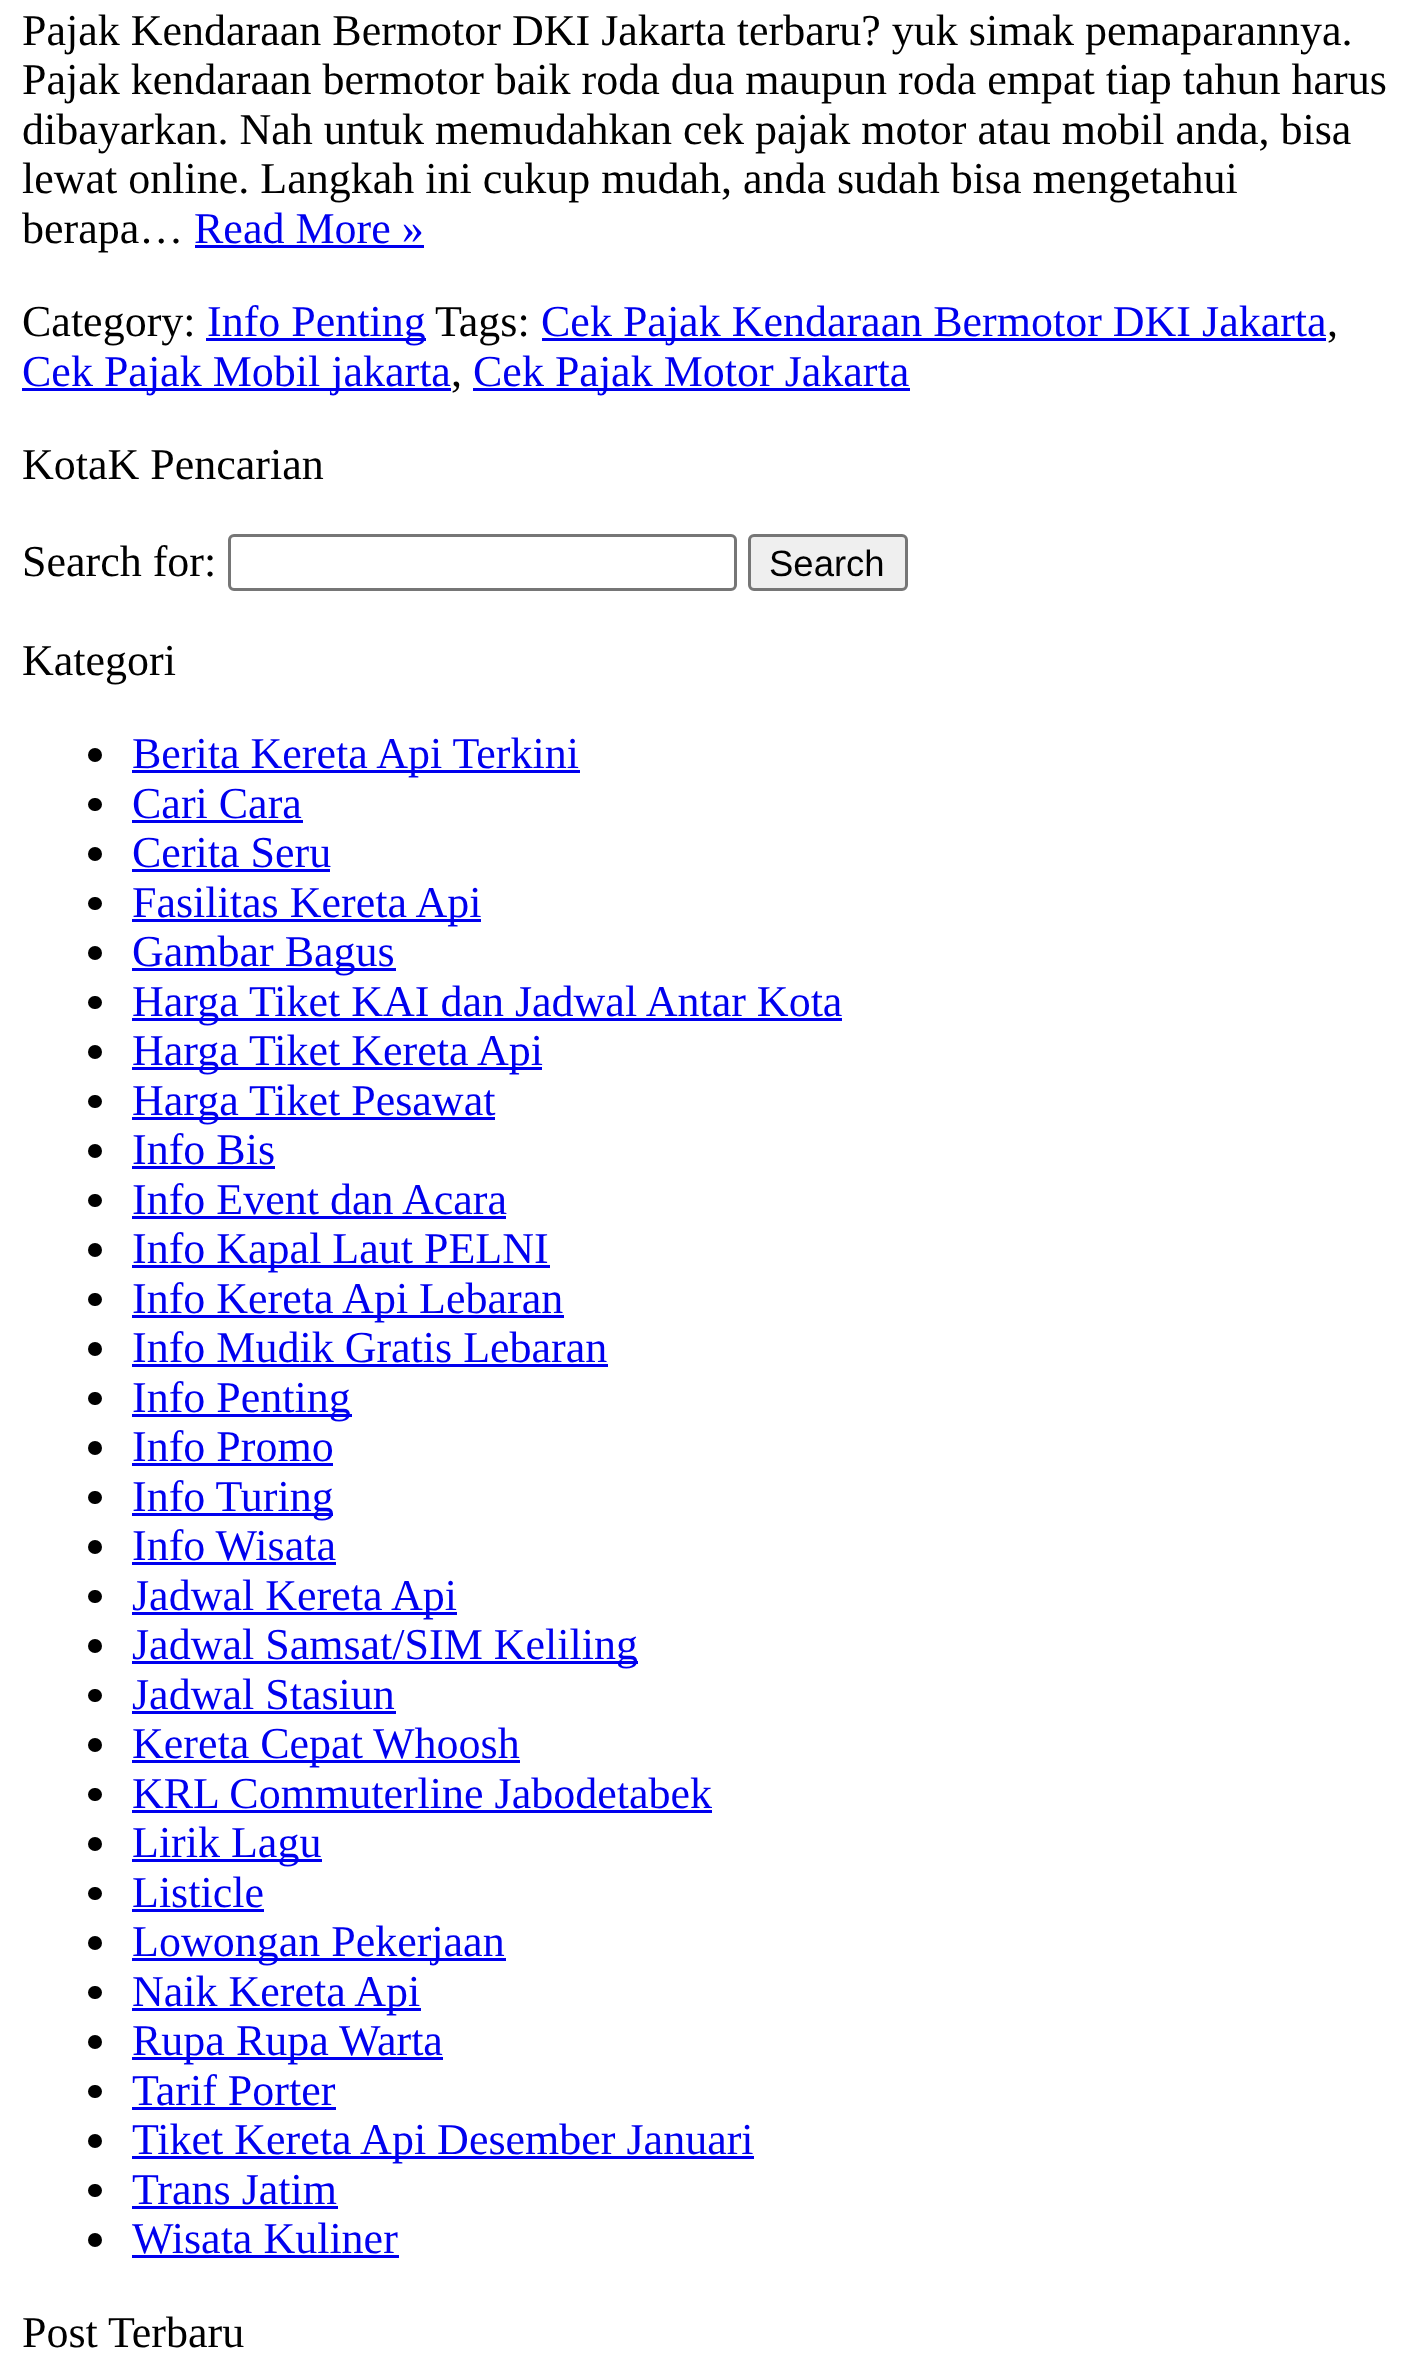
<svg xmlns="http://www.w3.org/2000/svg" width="1413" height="2355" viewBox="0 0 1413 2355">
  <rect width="100%" height="100%" fill="#ffffff"/>
  <text x="22" y="45" font-family="Liberation Serif" font-size="44" fill="#000000">Pajak Kendaraan Bermotor DKI Jakarta terbaru? yuk simak pemaparannya.</text>
  <text x="22" y="94" font-family="Liberation Serif" font-size="44" fill="#000000">Pajak kendaraan bermotor baik roda dua maupun roda empat tiap tahun harus</text>
  <text x="22" y="144" font-family="Liberation Serif" font-size="44" fill="#000000">dibayarkan. Nah untuk memudahkan cek pajak motor atau mobil anda, bisa</text>
  <text x="22" y="193" font-family="Liberation Serif" font-size="44" fill="#000000">lewat online. Langkah ini cukup mudah, anda sudah bisa mengetahui</text>
  <text x="22" y="243" font-family="Liberation Serif" font-size="44" fill="#000000">berapa…</text>
  <text x="194" y="243" font-family="Liberation Serif" font-size="44" fill="#0000ee">Read More »</text>
  <rect x="195" y="245" width="229" height="3" fill="#0000ee"/>
  <text x="22" y="336" font-family="Liberation Serif" font-size="44" fill="#000000">Category:</text>
  <rect x="206" y="338" width="220" height="3" fill="#0000ee"/>
  <text x="207" y="336" font-family="Liberation Serif" font-size="44" fill="#0000ee">Info Penting</text>
  <text x="435" y="336" font-family="Liberation Serif" font-size="44" fill="#000000">Tags:</text>
  <rect x="542" y="338" width="784" height="3" fill="#0000ee"/>
  <text x="541" y="336" font-family="Liberation Serif" font-size="44" fill="#0000ee">Cek Pajak Kendaraan Bermotor DKI Jakarta</text>
  <text x="1327" y="336" font-family="Liberation Serif" font-size="44" fill="#000000">,</text>
  <rect x="22" y="388" width="429" height="3" fill="#0000ee"/>
  <text x="22" y="386" font-family="Liberation Serif" font-size="44" fill="#0000ee">Cek Pajak Mobil jakarta</text>
  <text x="451" y="386" font-family="Liberation Serif" font-size="44" fill="#000000">,</text>
  <rect x="473" y="388" width="437" height="3" fill="#0000ee"/>
  <text x="473" y="386" font-family="Liberation Serif" font-size="44" fill="#0000ee">Cek Pajak Motor Jakarta</text>
  <text x="22" y="479" font-family="Liberation Serif" font-size="44" fill="#000000">KotaK Pencarian</text>
  <text x="22" y="576" font-family="Liberation Serif" font-size="44" fill="#000000">Search for:</text>
  <rect x="229.5" y="535.5" width="506" height="54" rx="4.5" fill="none" stroke="#767676" stroke-width="3"/>
  <rect x="749.5" y="535.5" width="157" height="54" rx="4.5" fill="#efefef" stroke="#767676" stroke-width="3"/>
  <text x="769" y="576" font-family="Liberation Sans" font-size="36.5" fill="#000000">Search</text>
  <text x="22" y="675" font-family="Liberation Serif" font-size="44" fill="#000000">Kategori</text>
  <circle cx="95" cy="755" r="7" fill="#000000"/>
  <rect x="132" y="770" width="448" height="3" fill="#0000ee"/>
  <text x="132" y="768" font-family="Liberation Serif" font-size="44" fill="#0000ee">Berita Kereta Api Terkini</text>
  <rect x="88" y="798" width="14" height="13" rx="6.5" fill="#000000"/>
  <text x="132" y="818" font-family="Liberation Serif" font-size="44" fill="#0000ee">Cari Cara</text>
  <rect x="132" y="820" width="171" height="3" fill="#0000ee"/>
  <circle cx="95" cy="854" r="7" fill="#000000"/>
  <text x="132" y="867" font-family="Liberation Serif" font-size="44" fill="#0000ee">Cerita Seru</text>
  <rect x="132" y="869" width="198" height="3" fill="#0000ee"/>
  <rect x="88" y="897" width="14" height="13" rx="6.5" fill="#000000"/>
  <rect x="132" y="919" width="349" height="3" fill="#0000ee"/>
  <text x="132" y="917" font-family="Liberation Serif" font-size="44" fill="#0000ee">Fasilitas Kereta Api</text>
  <circle cx="95" cy="953" r="7" fill="#000000"/>
  <rect x="132" y="968" width="264" height="3" fill="#0000ee"/>
  <text x="132" y="966" font-family="Liberation Serif" font-size="44" fill="#0000ee">Gambar Bagus</text>
  <rect x="88" y="996" width="14" height="13" rx="6.5" fill="#000000"/>
  <rect x="132" y="1018" width="710" height="3" fill="#0000ee"/>
  <text x="132" y="1016" font-family="Liberation Serif" font-size="44" fill="#0000ee">Harga Tiket KAI dan Jadwal Antar Kota</text>
  <circle cx="95" cy="1052" r="7" fill="#000000"/>
  <rect x="132" y="1067" width="410" height="3" fill="#0000ee"/>
  <text x="132" y="1065" font-family="Liberation Serif" font-size="44" fill="#0000ee">Harga Tiket Kereta Api</text>
  <rect x="88" y="1095" width="14" height="13" rx="6.5" fill="#000000"/>
  <rect x="132" y="1117" width="363" height="3" fill="#0000ee"/>
  <text x="132" y="1115" font-family="Liberation Serif" font-size="44" fill="#0000ee">Harga Tiket Pesawat</text>
  <circle cx="95" cy="1151" r="7" fill="#000000"/>
  <text x="132" y="1164" font-family="Liberation Serif" font-size="44" fill="#0000ee">Info Bis</text>
  <rect x="132" y="1166" width="143" height="3" fill="#0000ee"/>
  <rect x="88" y="1194" width="14" height="13" rx="6.5" fill="#000000"/>
  <text x="132" y="1214" font-family="Liberation Serif" font-size="44" fill="#0000ee">Info Event dan Acara</text>
  <rect x="132" y="1216" width="374" height="3" fill="#0000ee"/>
  <circle cx="95" cy="1250" r="7" fill="#000000"/>
  <rect x="132" y="1265" width="418" height="3" fill="#0000ee"/>
  <text x="132" y="1263" font-family="Liberation Serif" font-size="44" fill="#0000ee">Info Kapal Laut PELNI</text>
  <rect x="88" y="1293" width="14" height="13" rx="6.5" fill="#000000"/>
  <rect x="132" y="1315" width="432" height="3" fill="#0000ee"/>
  <text x="132" y="1313" font-family="Liberation Serif" font-size="44" fill="#0000ee">Info Kereta Api Lebaran</text>
  <circle cx="95" cy="1349" r="7" fill="#000000"/>
  <text x="132" y="1362" font-family="Liberation Serif" font-size="44" fill="#0000ee">Info Mudik Gratis Lebaran</text>
  <rect x="132" y="1364" width="476" height="3" fill="#0000ee"/>
  <rect x="88" y="1392" width="14" height="13" rx="6.5" fill="#000000"/>
  <rect x="132" y="1414" width="220" height="3" fill="#0000ee"/>
  <text x="132" y="1412" font-family="Liberation Serif" font-size="44" fill="#0000ee">Info Penting</text>
  <circle cx="95" cy="1448" r="7" fill="#000000"/>
  <text x="132" y="1461" font-family="Liberation Serif" font-size="44" fill="#0000ee">Info Promo</text>
  <rect x="132" y="1463" width="201" height="3" fill="#0000ee"/>
  <rect x="88" y="1491" width="14" height="13" rx="6.5" fill="#000000"/>
  <rect x="132" y="1513" width="201" height="3" fill="#0000ee"/>
  <text x="132" y="1511" font-family="Liberation Serif" font-size="44" fill="#0000ee">Info Turing</text>
  <circle cx="95" cy="1547" r="7" fill="#000000"/>
  <text x="132" y="1560" font-family="Liberation Serif" font-size="44" fill="#0000ee">Info Wisata</text>
  <rect x="132" y="1562" width="204" height="3" fill="#0000ee"/>
  <rect x="88" y="1590" width="14" height="13" rx="6.5" fill="#000000"/>
  <rect x="132" y="1612" width="325" height="3" fill="#0000ee"/>
  <text x="132" y="1610" font-family="Liberation Serif" font-size="44" fill="#0000ee">Jadwal Kereta Api</text>
  <circle cx="95" cy="1646" r="7" fill="#000000"/>
  <rect x="132" y="1661" width="506" height="3" fill="#0000ee"/>
  <text x="132" y="1659" font-family="Liberation Serif" font-size="44" fill="#0000ee">Jadwal Samsat/SIM Keliling</text>
  <rect x="88" y="1689" width="14" height="13" rx="6.5" fill="#000000"/>
  <text x="132" y="1709" font-family="Liberation Serif" font-size="44" fill="#0000ee">Jadwal Stasiun</text>
  <rect x="132" y="1711" width="264" height="3" fill="#0000ee"/>
  <circle cx="95" cy="1745" r="7" fill="#000000"/>
  <rect x="132" y="1760" width="388" height="3" fill="#0000ee"/>
  <text x="132" y="1758" font-family="Liberation Serif" font-size="44" fill="#0000ee">Kereta Cepat Whoosh</text>
  <rect x="88" y="1788" width="14" height="13" rx="6.5" fill="#000000"/>
  <text x="132" y="1808" font-family="Liberation Serif" font-size="44" fill="#0000ee">KRL Commuterline Jabodetabek</text>
  <rect x="132" y="1810" width="580" height="3" fill="#0000ee"/>
  <circle cx="95" cy="1844" r="7" fill="#000000"/>
  <rect x="132" y="1859" width="190" height="3" fill="#0000ee"/>
  <text x="132" y="1857" font-family="Liberation Serif" font-size="44" fill="#0000ee">Lirik Lagu</text>
  <rect x="88" y="1887" width="14" height="13" rx="6.5" fill="#000000"/>
  <text x="132" y="1907" font-family="Liberation Serif" font-size="44" fill="#0000ee">Listicle</text>
  <rect x="132" y="1909" width="132" height="3" fill="#0000ee"/>
  <circle cx="95" cy="1943" r="7" fill="#000000"/>
  <rect x="132" y="1958" width="374" height="3" fill="#0000ee"/>
  <text x="132" y="1956" font-family="Liberation Serif" font-size="44" fill="#0000ee">Lowongan Pekerjaan</text>
  <rect x="88" y="1986" width="14" height="13" rx="6.5" fill="#000000"/>
  <rect x="132" y="2008" width="289" height="3" fill="#0000ee"/>
  <text x="132" y="2006" font-family="Liberation Serif" font-size="44" fill="#0000ee">Naik Kereta Api</text>
  <circle cx="95" cy="2042" r="7" fill="#000000"/>
  <rect x="132" y="2057" width="311" height="3" fill="#0000ee"/>
  <text x="132" y="2055" font-family="Liberation Serif" font-size="44" fill="#0000ee">Rupa Rupa Warta</text>
  <rect x="88" y="2085" width="14" height="13" rx="6.5" fill="#000000"/>
  <text x="132" y="2105" font-family="Liberation Serif" font-size="44" fill="#0000ee">Tarif Porter</text>
  <rect x="132" y="2107" width="204" height="3" fill="#0000ee"/>
  <circle cx="95" cy="2141" r="7" fill="#000000"/>
  <rect x="132" y="2156" width="622" height="3" fill="#0000ee"/>
  <text x="132" y="2154" font-family="Liberation Serif" font-size="44" fill="#0000ee">Tiket Kereta Api Desember Januari</text>
  <rect x="88" y="2184" width="14" height="13" rx="6.5" fill="#000000"/>
  <text x="132" y="2204" font-family="Liberation Serif" font-size="44" fill="#0000ee">Trans Jatim</text>
  <rect x="132" y="2206" width="206" height="3" fill="#0000ee"/>
  <circle cx="95" cy="2240" r="7" fill="#000000"/>
  <text x="132" y="2253" font-family="Liberation Serif" font-size="44" fill="#0000ee">Wisata Kuliner</text>
  <rect x="132" y="2255" width="267" height="3" fill="#0000ee"/>
  <text x="22" y="2347" font-family="Liberation Serif" font-size="44" fill="#000000">Post Terbaru</text>
</svg>
